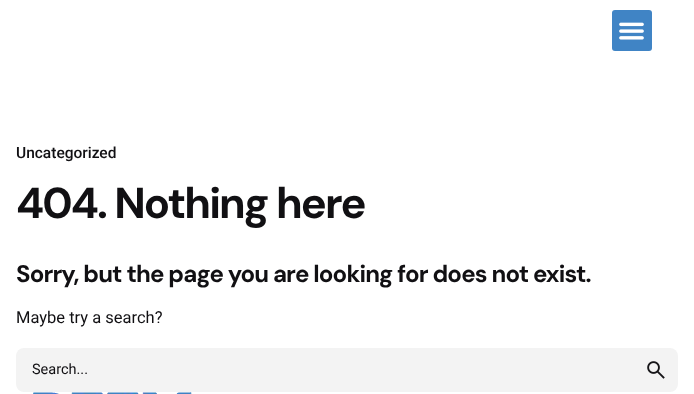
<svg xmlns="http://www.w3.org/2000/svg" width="694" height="394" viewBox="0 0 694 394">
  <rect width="100%" height="100%" fill="#ffffff"/>
  <rect x="612" y="10" width="40" height="41" rx="3" fill="#4084c5"/>
  <image x="619" y="22" width="25" height="18" href="img1.png"/>
  <text x="16" y="158" font-family="Roboto" font-size="15.5" font-weight="500" fill="#111013">Uncategorized</text>
  <text x="16" y="218" font-family="DM Sans" font-size="43.25" font-weight="bold" letter-spacing="-1.9" fill="#111013">404. Nothing here</text>
  <text x="16" y="282" font-family="DM Sans" font-size="24" font-weight="bold" letter-spacing="-0.85" fill="#111013">Sorry, but the page you are looking for does not exist.</text>
  <text x="16" y="323" font-family="Roboto" font-size="16.5" fill="#111013">Maybe try a search?</text>
  <rect x="16" y="348" width="662" height="44" rx="8" fill="#f3f3f3"/>
  <text x="32" y="374" font-family="Roboto" font-size="14.5" fill="#111013">Search...</text>
  <image x="647" y="361" width="18" height="18" href="img2.png"/>
  <image x="33" y="392" width="159" height="2" href="img3.png"/>
</svg>
